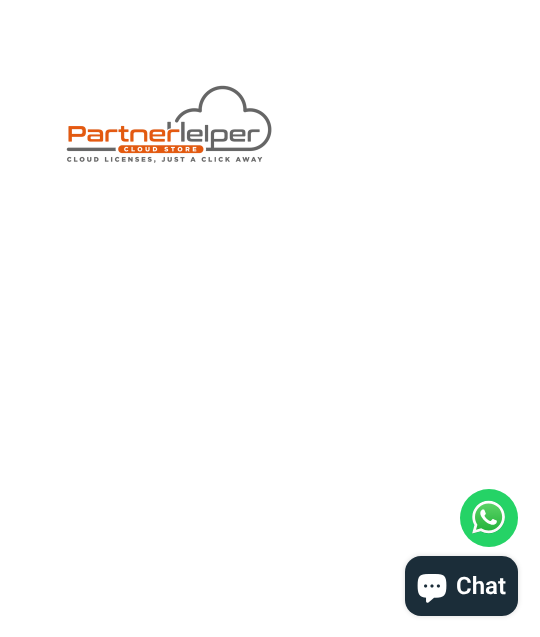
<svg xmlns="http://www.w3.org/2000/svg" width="540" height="637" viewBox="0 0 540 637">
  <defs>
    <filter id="blur1" x="-50%" y="-200%" width="200%" height="500%"><feGaussianBlur stdDeviation="2.5"/></filter>
  </defs>
  <rect width="100%" height="100%" fill="#ffffff"/>
  <image x="66" y="85" width="206" height="78" href="img1.png"/>
  <circle cx="489" cy="518" r="29" fill="#25d366"/>
  <image x="472" y="500" width="33" height="34" href="img2.png"/>
  <rect x="405" y="556" width="113" height="60" rx="16" fill="#000000" fill-opacity="0.15" filter="url(#blur1)"/>
  <rect x="405" y="556" width="113" height="60" rx="16" fill="#1b2d39"/>
  <image x="417" y="574" width="30" height="29" href="img3.png"/>
  <text x="456" y="594" font-family="Roboto" font-size="24" font-weight="600" fill="#ffffff">Chat</text>
</svg>
